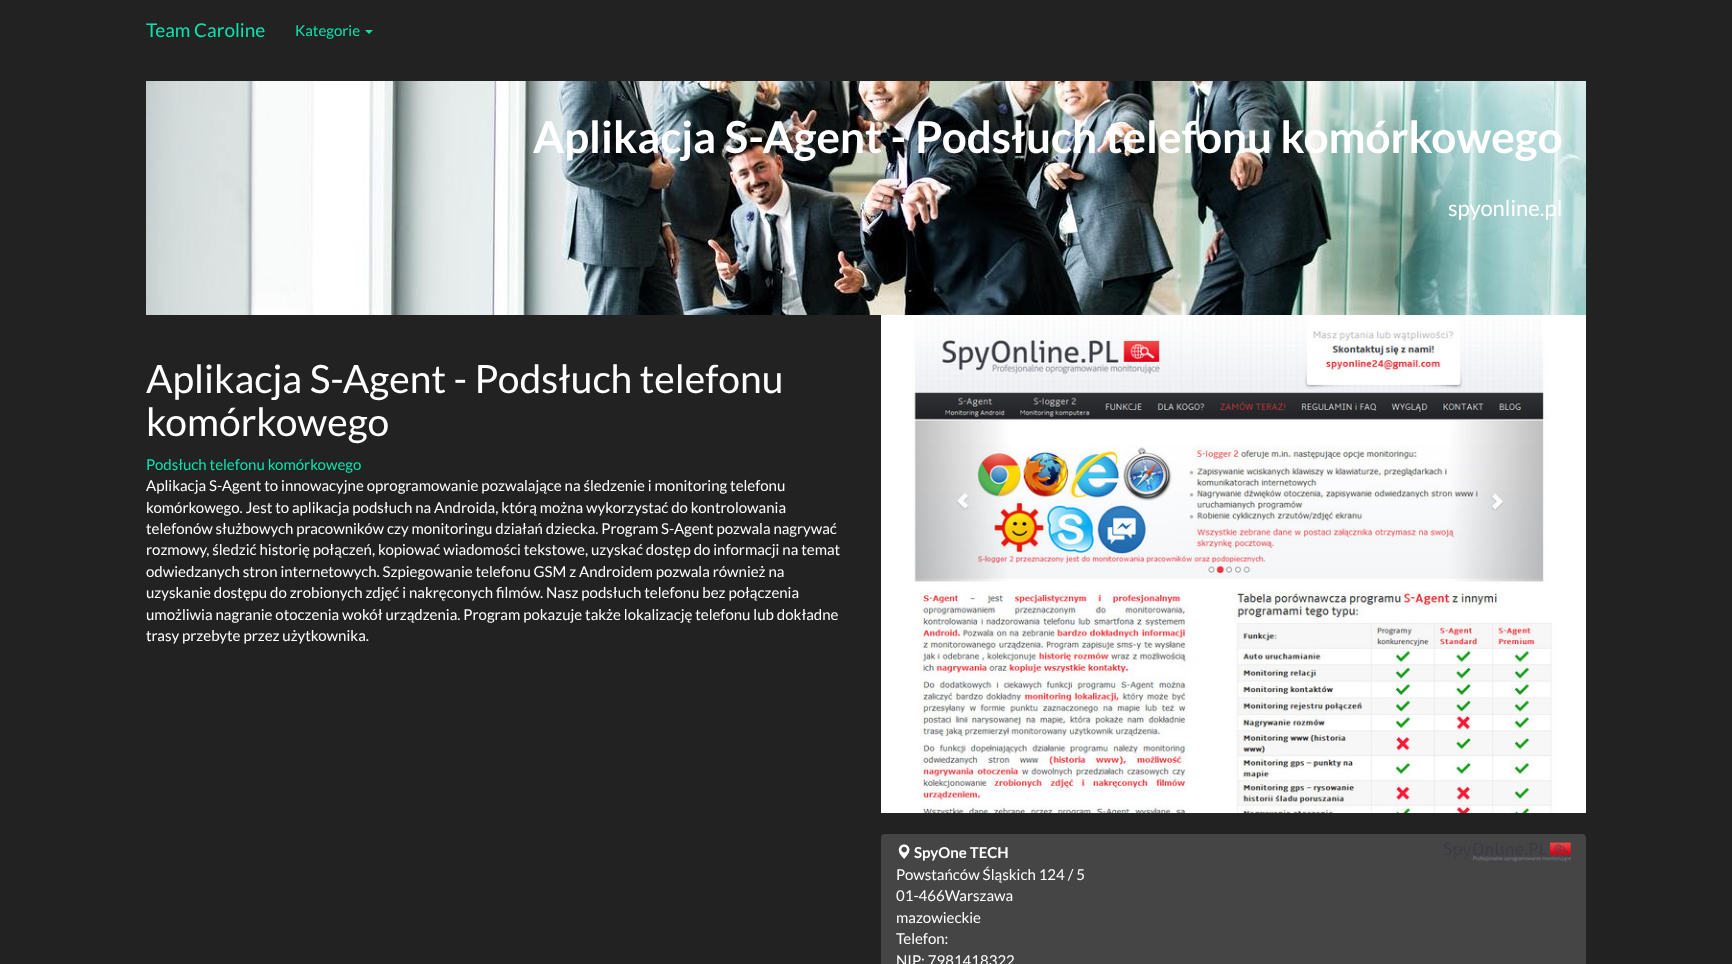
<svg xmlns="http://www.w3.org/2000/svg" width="1732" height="964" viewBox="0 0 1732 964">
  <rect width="100%" height="100%" fill="#222222"/>
  <text x="146" y="37" font-family="Lato" font-size="19" fill="#0ce3ac">Team Caroline</text>
  <text x="295" y="36" font-family="Lato" font-size="15" fill="#0ce3ac">Kategorie</text>
  <path d="M365 30H373L369 34Z" fill="#0ce3ac"/>
  <image x="146" y="81" width="1440" height="234" href="img1.png"/>
  <text x="533" y="153" font-family="Lato" font-size="44" font-weight="bold" fill="#ffffff">Aplikacja S-Agent - Podsłuch telefonu komórkowego</text>
  <text x="1448" y="216" font-family="Lato" font-size="22" fill="#ffffff">spyonline.pl</text>
  <text x="146" y="393" font-family="Lato" font-size="39" fill="#ffffff">Aplikacja S-Agent - Podsłuch telefonu</text>
  <text x="146" y="436" font-family="Lato" font-size="39" fill="#ffffff">komórkowego</text>
  <text x="146" y="470" font-family="Lato" font-size="15" fill="#0ce3ac">Podsłuch telefonu komórkowego</text>
  <text x="146" y="491" font-family="Lato" font-size="15" fill="#ffffff">Aplikacja S-Agent to innowacyjne oprogramowanie pozwalające na śledzenie i monitoring telefonu</text>
  <text x="146" y="513" font-family="Lato" font-size="15" fill="#ffffff">komórkowego. Jest to aplikacja podsłuch na Androida, którą można wykorzystać do kontrolowania</text>
  <text x="146" y="534" font-family="Lato" font-size="15" fill="#ffffff">telefonów służbowych pracowników czy monitoringu działań dziecka. Program S-Agent pozwala nagrywać</text>
  <text x="146" y="555" font-family="Lato" font-size="15" fill="#ffffff">rozmowy, śledzić historię połączeń, kopiować wiadomości tekstowe, uzyskać dostęp do informacji na temat</text>
  <text x="146" y="577" font-family="Lato" font-size="15" fill="#ffffff">odwiedzanych stron internetowych. Szpiegowanie telefonu GSM z Androidem pozwala również na</text>
  <text x="146" y="598" font-family="Lato" font-size="15" fill="#ffffff">uzyskanie dostępu do zrobionych zdjęć i nakręconych filmów. Nasz podsłuch telefonu bez połączenia</text>
  <text x="146" y="620" font-family="Lato" font-size="15" fill="#ffffff">umożliwia nagranie otoczenia wokół urządzenia. Program pokazuje także lokalizację telefonu lub dokładne</text>
  <text x="146" y="641" font-family="Lato" font-size="15" fill="#ffffff">trasy przebyte przez użytkownika.</text>
  <image x="881" y="315" width="705" height="498" href="img2.png"/>
  <rect x="881" y="834" width="705" height="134" rx="4" fill="#464545"/>
  <image x="898" y="844" width="12" height="15" href="img3.png"/>
  <text x="914" y="858" font-family="Lato" font-size="15" font-weight="bold" fill="#ffffff">SpyOne TECH</text>
  <text x="896" y="880" font-family="Lato" font-size="15" fill="#ffffff">Powstańców Śląskich 124 / 5</text>
  <text x="896" y="901" font-family="Lato" font-size="15" fill="#ffffff">01-466Warszawa</text>
  <text x="896" y="923" font-family="Lato" font-size="15" fill="#ffffff">mazowieckie</text>
  <text x="896" y="944" font-family="Lato" font-size="15" fill="#ffffff">Telefon:</text>
  <text x="896" y="966" font-family="Lato" font-size="15" fill="#ffffff">NIP: 7981418322</text>
  <image x="1444" y="842" width="127" height="20" href="img4.png"/>
</svg>
